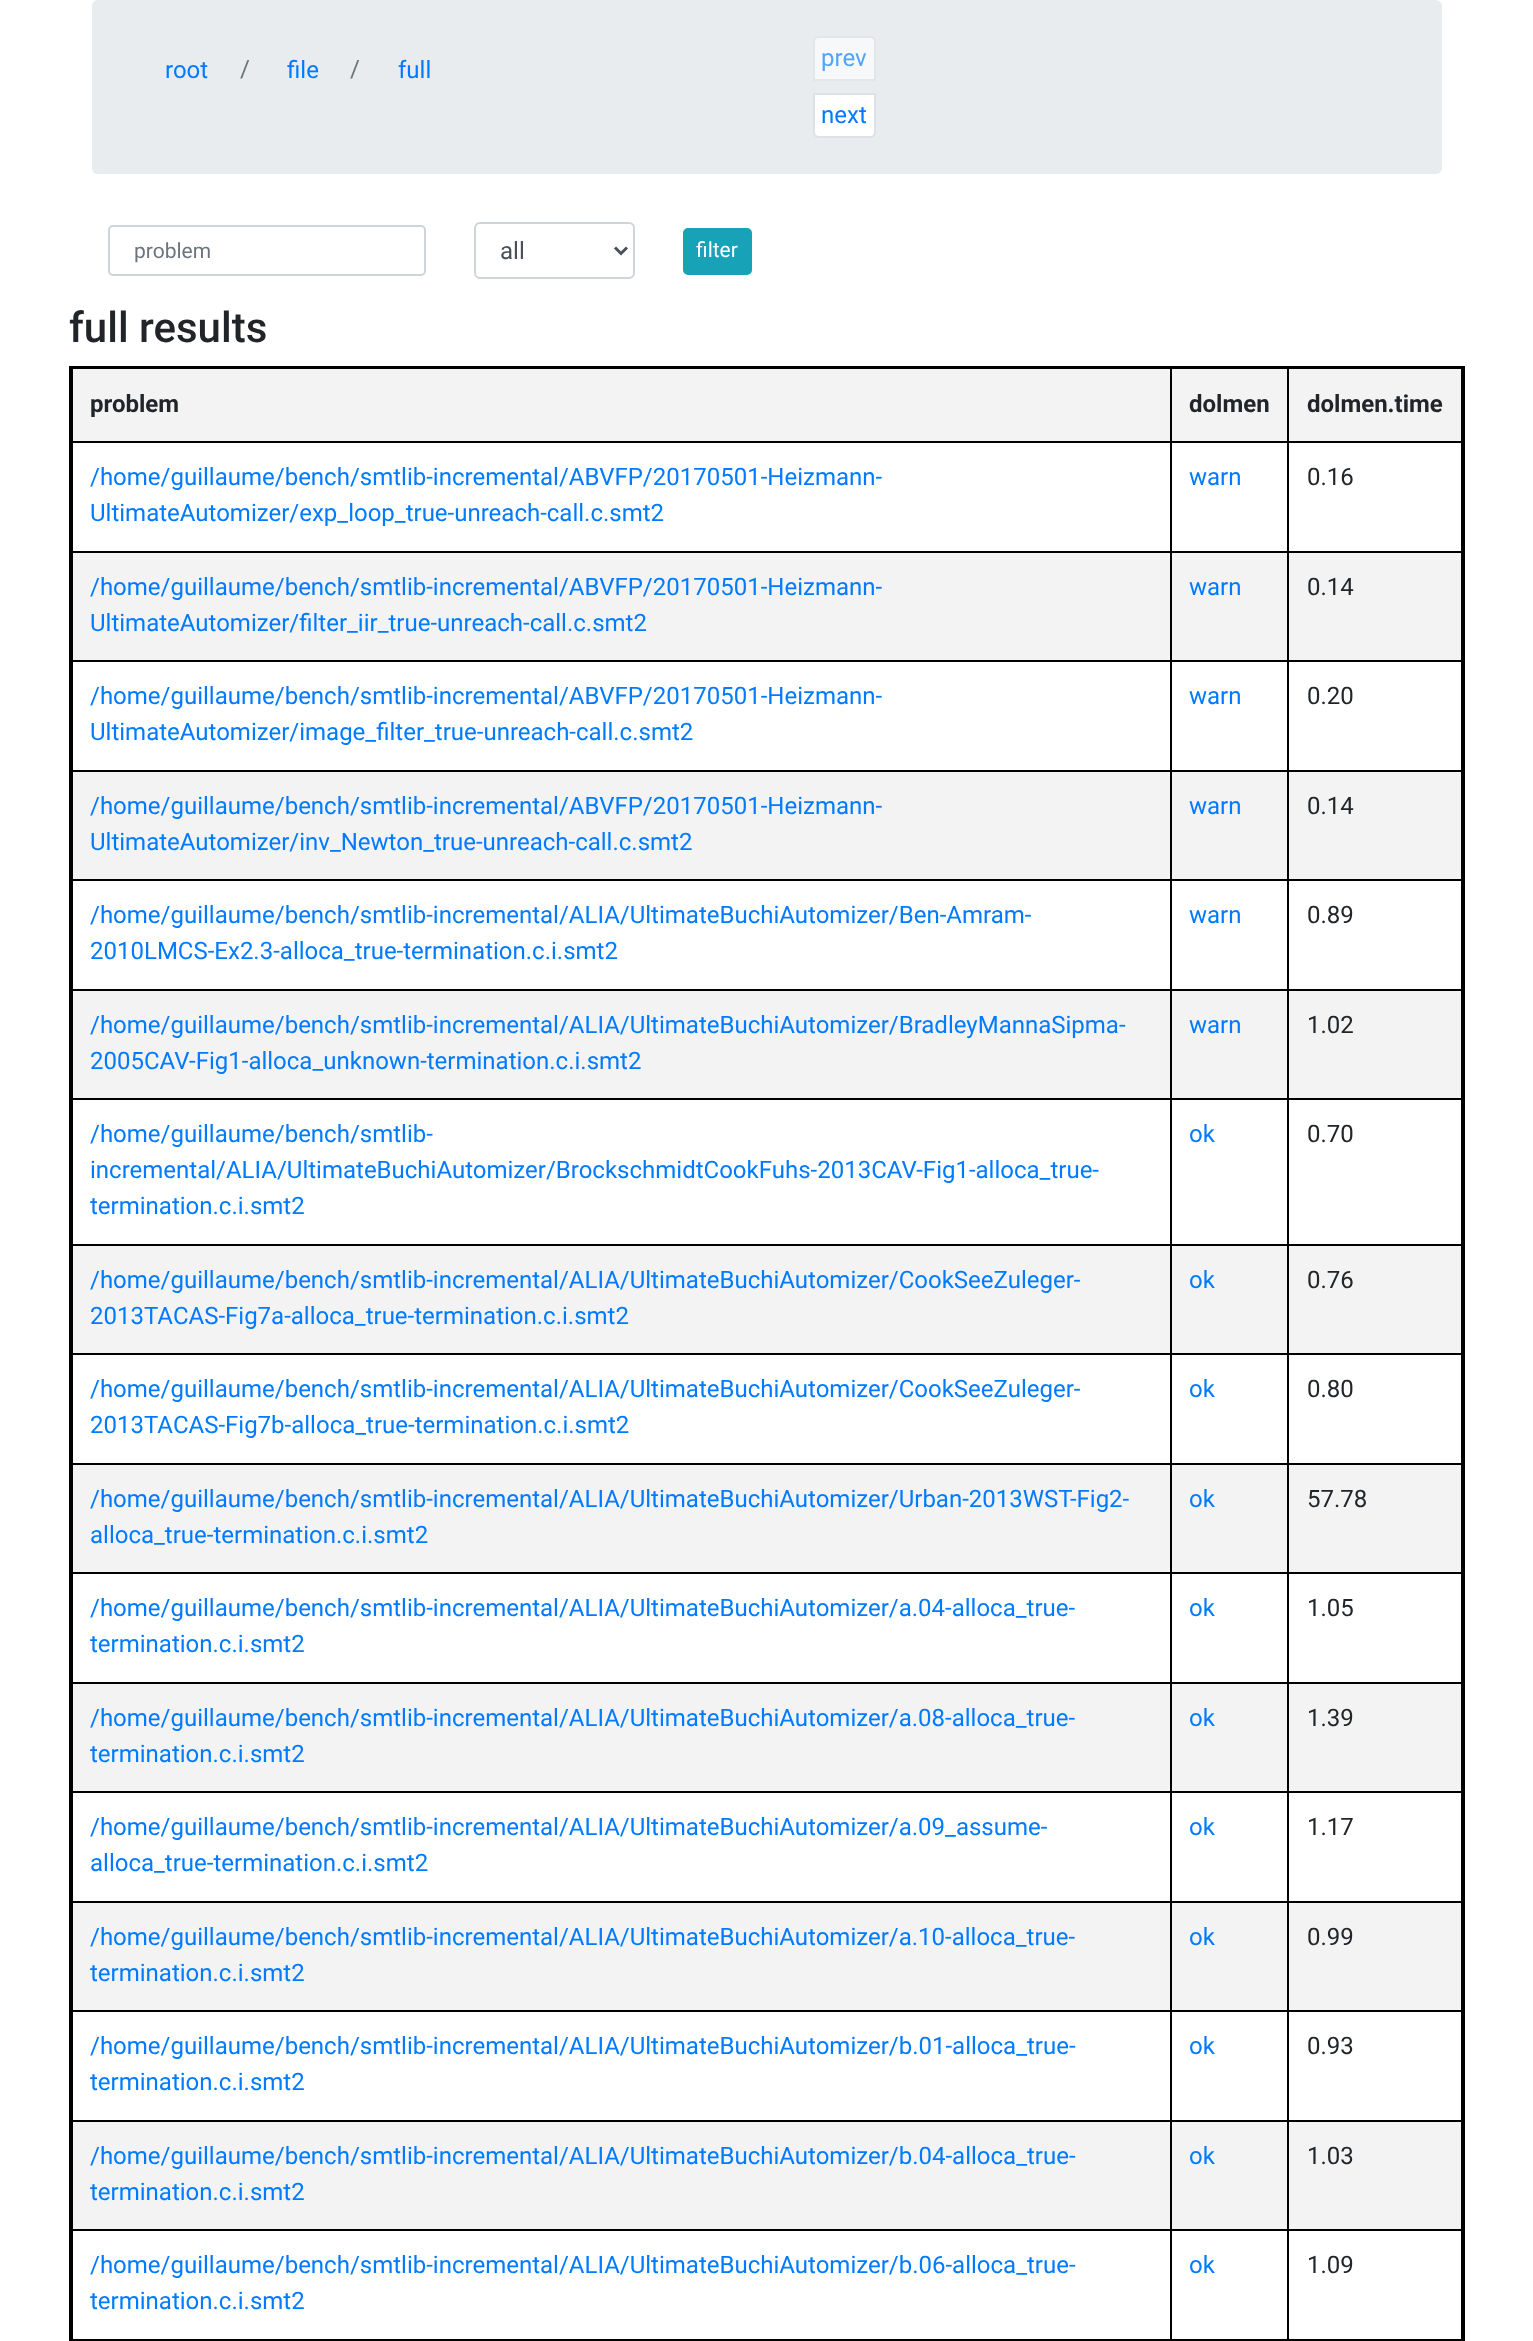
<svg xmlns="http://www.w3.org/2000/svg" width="1533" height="2341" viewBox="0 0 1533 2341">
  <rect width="100%" height="100%" fill="#ffffff"/>
  <rect x="92" y="0" width="1350" height="174" rx="6" fill="#e9ecef"/>
  <text x="165" y="78" font-family="Roboto" font-size="24" fill="#007bff">root</text>
  <text x="240" y="77" font-family="Roboto" font-size="24" fill="#6c757d">/</text>
  <text x="287" y="78" font-family="Roboto" font-size="24" fill="#007bff">file</text>
  <text x="350" y="77" font-family="Roboto" font-size="24" fill="#6c757d">/</text>
  <text x="398" y="78" font-family="Roboto" font-size="24" fill="#007bff">full</text>
  <path d="M819 37H870C873 37 875 39 875 42V80H814V42C814 39 816 37 819 37Z" fill="#f7f8f9" stroke="#e2e6e9" stroke-width="2"/>
  <text x="821" y="66" font-family="Roboto" font-size="24" fill="#52a3f9">prev</text>
  <path d="M814 94H875V132C875 135 873 137 870 137H819C816 137 814 135 814 132Z" fill="#ffffff" stroke="#dee2e6" stroke-width="2"/>
  <text x="821" y="123" font-family="Roboto" font-size="24" fill="#007bff">next</text>
  <rect x="109" y="226" width="316" height="49" rx="4" fill="none" stroke="#ced4da" stroke-width="2"/>
  <text x="134" y="258" font-family="Roboto" font-size="21" fill="#6c757d">problem</text>
  <rect x="475" y="223" width="159" height="55" rx="5" fill="none" stroke="#ced4da" stroke-width="2"/>
  <path d="M615 247.5L621 253.5L627 247.5" fill="none" stroke="#495057" stroke-width="3"/>
  <text x="500" y="259" font-family="Roboto" font-size="24" fill="#495057">all</text>
  <rect x="684" y="229" width="67" height="45" rx="4" fill="#17a2b8" stroke="#17a2b8" stroke-width="2"/>
  <text x="696" y="257" font-family="Roboto" font-size="21" fill="#ffffff">filter</text>
  <text x="69" y="342" font-family="Roboto" font-size="42" font-weight="500" fill="#212529">full results</text>
  <rect x="73" y="369" width="1388" height="72" fill="#f3f3f3"/>
  <rect x="1287" y="441" width="177" height="2" fill="#000000"/>
  <rect x="1287" y="551" width="177" height="2" fill="#000000"/>
  <rect x="73" y="553" width="1388" height="107" fill="#f3f3f3"/>
  <rect x="1287" y="660" width="177" height="2" fill="#000000"/>
  <rect x="1287" y="770" width="177" height="2" fill="#000000"/>
  <rect x="73" y="772" width="1388" height="107" fill="#f3f3f3"/>
  <rect x="1287" y="879" width="177" height="2" fill="#000000"/>
  <rect x="1287" y="989" width="177" height="2" fill="#000000"/>
  <rect x="73" y="991" width="1388" height="107" fill="#f3f3f3"/>
  <rect x="1287" y="1098" width="177" height="2" fill="#000000"/>
  <rect x="1287" y="1244" width="177" height="2" fill="#000000"/>
  <rect x="73" y="1246" width="1388" height="107" fill="#f3f3f3"/>
  <rect x="1287" y="1353" width="177" height="2" fill="#000000"/>
  <rect x="1287" y="1463" width="177" height="2" fill="#000000"/>
  <rect x="73" y="1465" width="1388" height="107" fill="#f3f3f3"/>
  <rect x="1287" y="1572" width="177" height="2" fill="#000000"/>
  <rect x="1287" y="1682" width="177" height="2" fill="#000000"/>
  <rect x="73" y="1684" width="1388" height="107" fill="#f3f3f3"/>
  <rect x="1287" y="1791" width="177" height="2" fill="#000000"/>
  <rect x="1287" y="1901" width="177" height="2" fill="#000000"/>
  <rect x="73" y="1903" width="1388" height="107" fill="#f3f3f3"/>
  <rect x="1287" y="2010" width="177" height="2" fill="#000000"/>
  <rect x="1287" y="2120" width="177" height="2" fill="#000000"/>
  <rect x="73" y="2122" width="1388" height="107" fill="#f3f3f3"/>
  <rect x="1287" y="2229" width="177" height="2" fill="#000000"/>
  <rect x="71" y="2339" width="1393" height="2" fill="#000000"/>
  <rect x="1287" y="2229" width="2" height="111" fill="#000000"/>
  <rect x="1170" y="2229" width="119" height="2" fill="#000000"/>
  <rect x="1287" y="2120" width="2" height="111" fill="#000000"/>
  <rect x="1170" y="2120" width="119" height="2" fill="#000000"/>
  <rect x="1287" y="2010" width="2" height="111" fill="#000000"/>
  <rect x="1170" y="2010" width="119" height="2" fill="#000000"/>
  <rect x="1287" y="1901" width="2" height="111" fill="#000000"/>
  <rect x="1170" y="1901" width="119" height="2" fill="#000000"/>
  <rect x="1287" y="1791" width="2" height="111" fill="#000000"/>
  <rect x="1170" y="1791" width="119" height="2" fill="#000000"/>
  <rect x="1287" y="1682" width="2" height="111" fill="#000000"/>
  <rect x="1170" y="1682" width="119" height="2" fill="#000000"/>
  <rect x="1287" y="1572" width="2" height="111" fill="#000000"/>
  <rect x="1170" y="1572" width="119" height="2" fill="#000000"/>
  <rect x="1287" y="1463" width="2" height="111" fill="#000000"/>
  <rect x="1170" y="1463" width="119" height="2" fill="#000000"/>
  <rect x="1287" y="1353" width="2" height="111" fill="#000000"/>
  <rect x="1170" y="1353" width="119" height="2" fill="#000000"/>
  <rect x="1287" y="1244" width="2" height="111" fill="#000000"/>
  <rect x="1170" y="1244" width="119" height="2" fill="#000000"/>
  <rect x="1287" y="1098" width="2" height="147" fill="#000000"/>
  <rect x="1170" y="1098" width="119" height="2" fill="#000000"/>
  <rect x="1287" y="989" width="2" height="111" fill="#000000"/>
  <rect x="1170" y="989" width="119" height="2" fill="#000000"/>
  <rect x="1287" y="879" width="2" height="111" fill="#000000"/>
  <rect x="1170" y="879" width="119" height="2" fill="#000000"/>
  <rect x="1287" y="770" width="2" height="111" fill="#000000"/>
  <rect x="1170" y="770" width="119" height="2" fill="#000000"/>
  <rect x="1287" y="660" width="2" height="111" fill="#000000"/>
  <rect x="1170" y="660" width="119" height="2" fill="#000000"/>
  <rect x="1287" y="551" width="2" height="111" fill="#000000"/>
  <rect x="1170" y="551" width="119" height="2" fill="#000000"/>
  <rect x="1287" y="441" width="2" height="111" fill="#000000"/>
  <rect x="1170" y="441" width="119" height="2" fill="#000000"/>
  <rect x="1170" y="2229" width="2" height="111" fill="#000000"/>
  <rect x="71" y="2229" width="1101" height="2" fill="#000000"/>
  <rect x="1170" y="2120" width="2" height="111" fill="#000000"/>
  <rect x="71" y="2120" width="1101" height="2" fill="#000000"/>
  <rect x="1170" y="2010" width="2" height="111" fill="#000000"/>
  <rect x="71" y="2010" width="1101" height="2" fill="#000000"/>
  <rect x="1170" y="1901" width="2" height="111" fill="#000000"/>
  <rect x="71" y="1901" width="1101" height="2" fill="#000000"/>
  <rect x="1170" y="1791" width="2" height="111" fill="#000000"/>
  <rect x="71" y="1791" width="1101" height="2" fill="#000000"/>
  <rect x="1170" y="1682" width="2" height="111" fill="#000000"/>
  <rect x="71" y="1682" width="1101" height="2" fill="#000000"/>
  <rect x="1170" y="1572" width="2" height="111" fill="#000000"/>
  <rect x="71" y="1572" width="1101" height="2" fill="#000000"/>
  <rect x="1170" y="1463" width="2" height="111" fill="#000000"/>
  <rect x="71" y="1463" width="1101" height="2" fill="#000000"/>
  <rect x="1170" y="1353" width="2" height="111" fill="#000000"/>
  <rect x="71" y="1353" width="1101" height="2" fill="#000000"/>
  <rect x="1170" y="1244" width="2" height="111" fill="#000000"/>
  <rect x="71" y="1244" width="1101" height="2" fill="#000000"/>
  <rect x="1170" y="1098" width="2" height="147" fill="#000000"/>
  <rect x="71" y="1098" width="1101" height="2" fill="#000000"/>
  <rect x="1170" y="989" width="2" height="111" fill="#000000"/>
  <rect x="71" y="989" width="1101" height="2" fill="#000000"/>
  <rect x="1170" y="879" width="2" height="111" fill="#000000"/>
  <rect x="71" y="879" width="1101" height="2" fill="#000000"/>
  <rect x="1170" y="770" width="2" height="111" fill="#000000"/>
  <rect x="71" y="770" width="1101" height="2" fill="#000000"/>
  <rect x="1170" y="660" width="2" height="111" fill="#000000"/>
  <rect x="71" y="660" width="1101" height="2" fill="#000000"/>
  <rect x="1170" y="551" width="2" height="111" fill="#000000"/>
  <rect x="71" y="551" width="1101" height="2" fill="#000000"/>
  <rect x="1170" y="441" width="2" height="111" fill="#000000"/>
  <rect x="71" y="441" width="1101" height="2" fill="#000000"/>
  <rect x="1170" y="366" width="2" height="77" fill="#000000"/>
  <rect x="1287" y="366" width="2" height="77" fill="#000000"/>
  <rect x="72" y="2229" width="1" height="111" fill="#000000"/>
  <rect x="72" y="2120" width="1" height="111" fill="#000000"/>
  <rect x="72" y="2010" width="1" height="111" fill="#000000"/>
  <rect x="72" y="1901" width="1" height="111" fill="#000000"/>
  <rect x="72" y="1791" width="1" height="111" fill="#000000"/>
  <rect x="72" y="1682" width="1" height="111" fill="#000000"/>
  <rect x="72" y="1572" width="1" height="111" fill="#000000"/>
  <rect x="72" y="1463" width="1" height="111" fill="#000000"/>
  <rect x="72" y="1353" width="1" height="111" fill="#000000"/>
  <rect x="72" y="1244" width="1" height="111" fill="#000000"/>
  <rect x="72" y="1098" width="1" height="147" fill="#000000"/>
  <rect x="72" y="989" width="1" height="111" fill="#000000"/>
  <rect x="72" y="879" width="1" height="111" fill="#000000"/>
  <rect x="72" y="770" width="1" height="111" fill="#000000"/>
  <rect x="72" y="660" width="1" height="111" fill="#000000"/>
  <rect x="72" y="551" width="1" height="111" fill="#000000"/>
  <rect x="72" y="366" width="1" height="186" fill="#000000"/>
  <rect x="69" y="366" width="1395" height="3" fill="#000000"/>
  <rect x="1463" y="2340" width="2" height="1" fill="#000000"/>
  <rect x="1461" y="366" width="3" height="1975" fill="#000000"/>
  <rect x="69" y="366" width="3" height="1975" fill="#000000"/>
  <text x="90" y="412" font-family="Roboto" font-size="24" font-weight="bold" fill="#212529">problem</text>
  <text x="1189" y="412" font-family="Roboto" font-size="24" font-weight="bold" fill="#212529">dolmen</text>
  <text x="1307" y="412" font-family="Roboto" font-size="24" font-weight="bold" fill="#212529">dolmen.time</text>
  <text x="90" y="485" font-family="Roboto" font-size="24" fill="#007bff">/home/guillaume/bench/smtlib-incremental/ABVFP/20170501-Heizmann-</text>
  <text x="90" y="521" font-family="Roboto" font-size="24" fill="#007bff">UltimateAutomizer/exp_loop_true-unreach-call.c.smt2</text>
  <text x="1189" y="485" font-family="Roboto" font-size="24" fill="#007bff">warn</text>
  <text x="1307" y="485" font-family="Roboto" font-size="24" fill="#212529">0.16</text>
  <text x="90" y="595" font-family="Roboto" font-size="24" fill="#007bff">/home/guillaume/bench/smtlib-incremental/ABVFP/20170501-Heizmann-</text>
  <text x="90" y="631" font-family="Roboto" font-size="24" fill="#007bff">UltimateAutomizer/filter_iir_true-unreach-call.c.smt2</text>
  <text x="1189" y="595" font-family="Roboto" font-size="24" fill="#007bff">warn</text>
  <text x="1307" y="595" font-family="Roboto" font-size="24" fill="#212529">0.14</text>
  <text x="90" y="704" font-family="Roboto" font-size="24" fill="#007bff">/home/guillaume/bench/smtlib-incremental/ABVFP/20170501-Heizmann-</text>
  <text x="90" y="740" font-family="Roboto" font-size="24" fill="#007bff">UltimateAutomizer/image_filter_true-unreach-call.c.smt2</text>
  <text x="1189" y="704" font-family="Roboto" font-size="24" fill="#007bff">warn</text>
  <text x="1307" y="704" font-family="Roboto" font-size="24" fill="#212529">0.20</text>
  <text x="90" y="814" font-family="Roboto" font-size="24" fill="#007bff">/home/guillaume/bench/smtlib-incremental/ABVFP/20170501-Heizmann-</text>
  <text x="90" y="850" font-family="Roboto" font-size="24" fill="#007bff">UltimateAutomizer/inv_Newton_true-unreach-call.c.smt2</text>
  <text x="1189" y="814" font-family="Roboto" font-size="24" fill="#007bff">warn</text>
  <text x="1307" y="814" font-family="Roboto" font-size="24" fill="#212529">0.14</text>
  <text x="90" y="923" font-family="Roboto" font-size="24" fill="#007bff">/home/guillaume/bench/smtlib-incremental/ALIA/UltimateBuchiAutomizer/Ben-Amram-</text>
  <text x="90" y="959" font-family="Roboto" font-size="24" fill="#007bff">2010LMCS-Ex2.3-alloca_true-termination.c.i.smt2</text>
  <text x="1189" y="923" font-family="Roboto" font-size="24" fill="#007bff">warn</text>
  <text x="1307" y="923" font-family="Roboto" font-size="24" fill="#212529">0.89</text>
  <text x="90" y="1033" font-family="Roboto" font-size="24" fill="#007bff">/home/guillaume/bench/smtlib-incremental/ALIA/UltimateBuchiAutomizer/BradleyMannaSipma-</text>
  <text x="90" y="1069" font-family="Roboto" font-size="24" fill="#007bff">2005CAV-Fig1-alloca_unknown-termination.c.i.smt2</text>
  <text x="1189" y="1033" font-family="Roboto" font-size="24" fill="#007bff">warn</text>
  <text x="1307" y="1033" font-family="Roboto" font-size="24" fill="#212529">1.02</text>
  <text x="90" y="1142" font-family="Roboto" font-size="24" fill="#007bff">/home/guillaume/bench/smtlib-</text>
  <text x="90" y="1178" font-family="Roboto" font-size="24" fill="#007bff">incremental/ALIA/UltimateBuchiAutomizer/BrockschmidtCookFuhs-2013CAV-Fig1-alloca_true-</text>
  <text x="90" y="1214" font-family="Roboto" font-size="24" fill="#007bff">termination.c.i.smt2</text>
  <text x="1189" y="1142" font-family="Roboto" font-size="24" fill="#007bff">ok</text>
  <text x="1307" y="1142" font-family="Roboto" font-size="24" fill="#212529">0.70</text>
  <text x="90" y="1288" font-family="Roboto" font-size="24" fill="#007bff">/home/guillaume/bench/smtlib-incremental/ALIA/UltimateBuchiAutomizer/CookSeeZuleger-</text>
  <text x="90" y="1324" font-family="Roboto" font-size="24" fill="#007bff">2013TACAS-Fig7a-alloca_true-termination.c.i.smt2</text>
  <text x="1189" y="1288" font-family="Roboto" font-size="24" fill="#007bff">ok</text>
  <text x="1307" y="1288" font-family="Roboto" font-size="24" fill="#212529">0.76</text>
  <text x="90" y="1397" font-family="Roboto" font-size="24" fill="#007bff">/home/guillaume/bench/smtlib-incremental/ALIA/UltimateBuchiAutomizer/CookSeeZuleger-</text>
  <text x="90" y="1433" font-family="Roboto" font-size="24" fill="#007bff">2013TACAS-Fig7b-alloca_true-termination.c.i.smt2</text>
  <text x="1189" y="1397" font-family="Roboto" font-size="24" fill="#007bff">ok</text>
  <text x="1307" y="1397" font-family="Roboto" font-size="24" fill="#212529">0.80</text>
  <text x="90" y="1507" font-family="Roboto" font-size="24" fill="#007bff">/home/guillaume/bench/smtlib-incremental/ALIA/UltimateBuchiAutomizer/Urban-2013WST-Fig2-</text>
  <text x="90" y="1543" font-family="Roboto" font-size="24" fill="#007bff">alloca_true-termination.c.i.smt2</text>
  <text x="1189" y="1507" font-family="Roboto" font-size="24" fill="#007bff">ok</text>
  <text x="1307" y="1507" font-family="Roboto" font-size="24" fill="#212529">57.78</text>
  <text x="90" y="1616" font-family="Roboto" font-size="24" fill="#007bff">/home/guillaume/bench/smtlib-incremental/ALIA/UltimateBuchiAutomizer/a.04-alloca_true-</text>
  <text x="90" y="1652" font-family="Roboto" font-size="24" fill="#007bff">termination.c.i.smt2</text>
  <text x="1189" y="1616" font-family="Roboto" font-size="24" fill="#007bff">ok</text>
  <text x="1307" y="1616" font-family="Roboto" font-size="24" fill="#212529">1.05</text>
  <text x="90" y="1726" font-family="Roboto" font-size="24" fill="#007bff">/home/guillaume/bench/smtlib-incremental/ALIA/UltimateBuchiAutomizer/a.08-alloca_true-</text>
  <text x="90" y="1762" font-family="Roboto" font-size="24" fill="#007bff">termination.c.i.smt2</text>
  <text x="1189" y="1726" font-family="Roboto" font-size="24" fill="#007bff">ok</text>
  <text x="1307" y="1726" font-family="Roboto" font-size="24" fill="#212529">1.39</text>
  <text x="90" y="1835" font-family="Roboto" font-size="24" fill="#007bff">/home/guillaume/bench/smtlib-incremental/ALIA/UltimateBuchiAutomizer/a.09_assume-</text>
  <text x="90" y="1871" font-family="Roboto" font-size="24" fill="#007bff">alloca_true-termination.c.i.smt2</text>
  <text x="1189" y="1835" font-family="Roboto" font-size="24" fill="#007bff">ok</text>
  <text x="1307" y="1835" font-family="Roboto" font-size="24" fill="#212529">1.17</text>
  <text x="90" y="1945" font-family="Roboto" font-size="24" fill="#007bff">/home/guillaume/bench/smtlib-incremental/ALIA/UltimateBuchiAutomizer/a.10-alloca_true-</text>
  <text x="90" y="1981" font-family="Roboto" font-size="24" fill="#007bff">termination.c.i.smt2</text>
  <text x="1189" y="1945" font-family="Roboto" font-size="24" fill="#007bff">ok</text>
  <text x="1307" y="1945" font-family="Roboto" font-size="24" fill="#212529">0.99</text>
  <text x="90" y="2054" font-family="Roboto" font-size="24" fill="#007bff">/home/guillaume/bench/smtlib-incremental/ALIA/UltimateBuchiAutomizer/b.01-alloca_true-</text>
  <text x="90" y="2090" font-family="Roboto" font-size="24" fill="#007bff">termination.c.i.smt2</text>
  <text x="1189" y="2054" font-family="Roboto" font-size="24" fill="#007bff">ok</text>
  <text x="1307" y="2054" font-family="Roboto" font-size="24" fill="#212529">0.93</text>
  <text x="90" y="2164" font-family="Roboto" font-size="24" fill="#007bff">/home/guillaume/bench/smtlib-incremental/ALIA/UltimateBuchiAutomizer/b.04-alloca_true-</text>
  <text x="90" y="2200" font-family="Roboto" font-size="24" fill="#007bff">termination.c.i.smt2</text>
  <text x="1189" y="2164" font-family="Roboto" font-size="24" fill="#007bff">ok</text>
  <text x="1307" y="2164" font-family="Roboto" font-size="24" fill="#212529">1.03</text>
  <text x="90" y="2273" font-family="Roboto" font-size="24" fill="#007bff">/home/guillaume/bench/smtlib-incremental/ALIA/UltimateBuchiAutomizer/b.06-alloca_true-</text>
  <text x="90" y="2309" font-family="Roboto" font-size="24" fill="#007bff">termination.c.i.smt2</text>
  <text x="1189" y="2273" font-family="Roboto" font-size="24" fill="#007bff">ok</text>
  <rect x="1464" y="366" width="1" height="1974" fill="#000000"/>
  <text x="1307" y="2273" font-family="Roboto" font-size="24" fill="#212529">1.09</text>
</svg>
